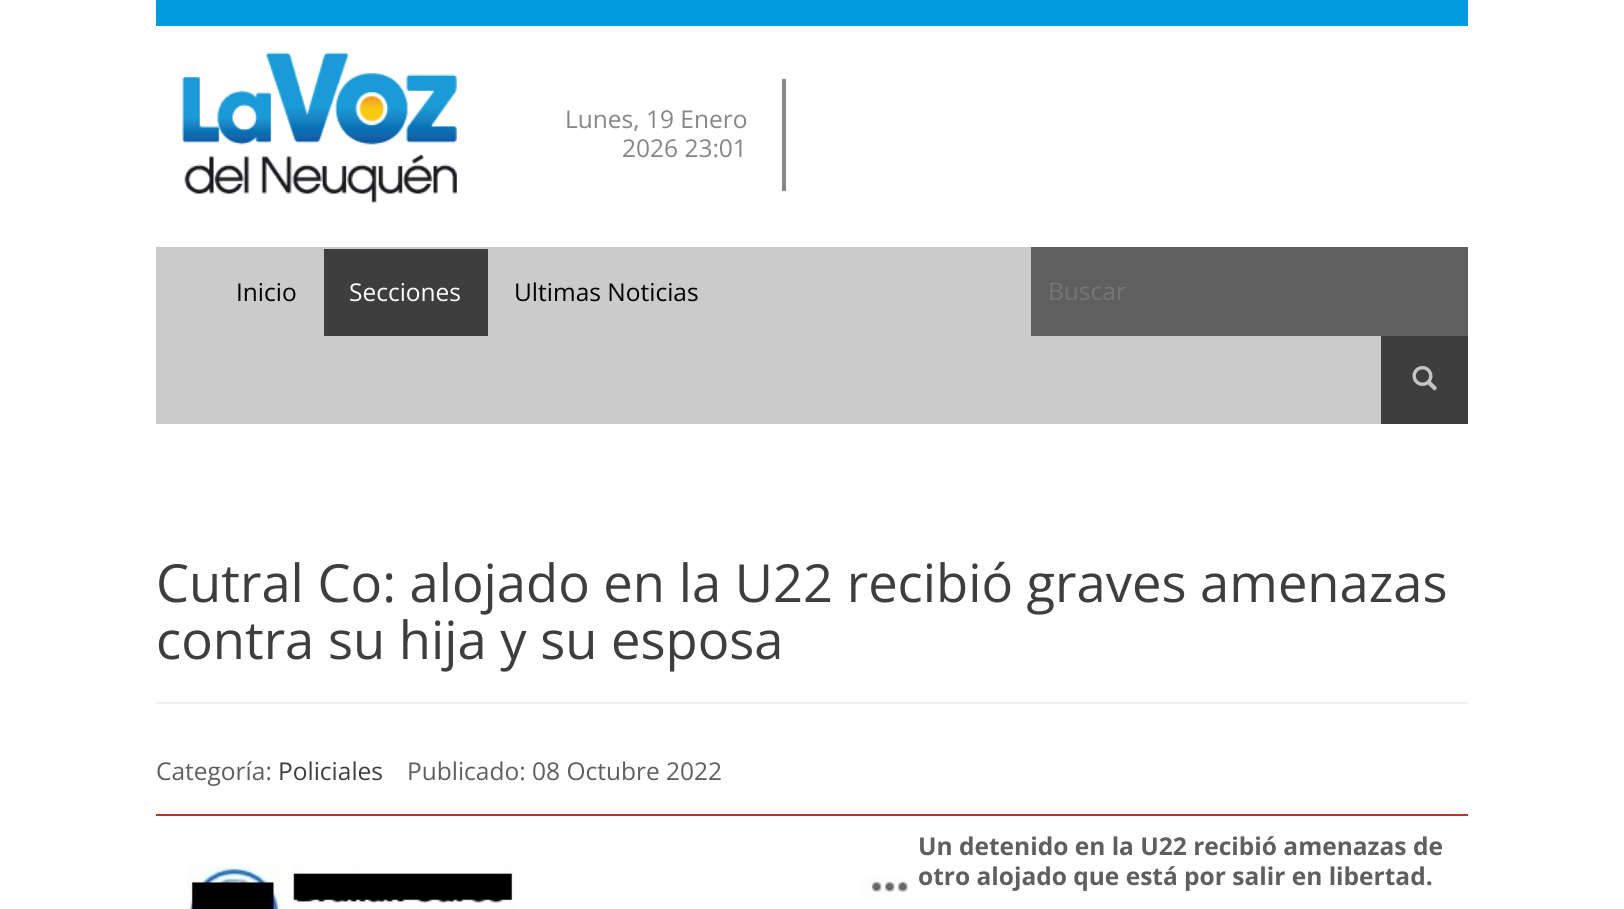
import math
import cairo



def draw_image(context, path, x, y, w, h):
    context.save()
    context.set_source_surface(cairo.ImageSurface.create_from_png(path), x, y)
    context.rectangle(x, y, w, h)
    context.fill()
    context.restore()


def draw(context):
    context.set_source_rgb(1, 1, 1)
    context.paint()
    context.set_source_rgb(0, 156 / 255, 221 / 255)
    context.rectangle(156, 0, 1312, 26)
    context.fill()
    draw_image(context, "images/1.png", 182, 52, 275, 151)
    context.set_source_rgb(134 / 255, 134 / 255, 134 / 255)
    context.rectangle(782, 79, 4, 112)
    context.fill()
    context.set_source_rgb(203 / 255, 203 / 255, 203 / 255)
    context.rectangle(156, 247, 1225, 177)
    context.fill()
    context.set_source_rgb(62 / 255, 62 / 255, 62 / 255)
    context.rectangle(324, 249, 164, 87)
    context.fill()
    context.set_source_rgb(95 / 255, 95 / 255, 95 / 255)
    context.rectangle(1031, 247, 437, 89)
    context.fill()
    context.set_source_rgb(62 / 255, 62 / 255, 62 / 255)
    context.rectangle(1381, 336, 87, 88)
    context.fill()
    draw_image(context, "images/2.png", 1412, 365, 25, 26)
    context.set_source_rgb(238 / 255, 238 / 255, 238 / 255)
    context.rectangle(156, 702, 1312, 2)
    context.fill()
    context.set_source_rgb(190 / 255, 50 / 255, 43 / 255)
    context.rectangle(156, 814, 1312, 2)
    context.fill()
    draw_image(context, "images/3.png", 187, 864, 721, 45)
    context.select_font_face("Open Sans")
    context.set_font_size(24.5)
    context.set_source_rgb(134 / 255, 134 / 255, 134 / 255)
    context.move_to(565, 128)
    context.show_text("Lunes, 19 Enero")
    context.move_to(622, 157)
    context.show_text("2026 23:01")
    context.set_source_rgb(0, 0, 0)
    context.move_to(236, 301)
    context.show_text("Inicio")
    context.set_source_rgb(1, 1, 1)
    context.move_to(349, 301)
    context.show_text("Secciones")
    context.set_source_rgb(0, 0, 0)
    context.move_to(514, 301)
    context.show_text("Ultimas Noticias")
    context.set_source_rgb(117 / 255, 117 / 255, 117 / 255)
    context.move_to(1048, 300)
    context.show_text("Buscar")
    context.set_font_size(52.5)
    context.set_source_rgb(62 / 255, 62 / 255, 62 / 255)
    context.move_to(156, 602)
    context.show_text("Cutral Co: alojado en la U22 recibió graves amenazas")
    context.move_to(156, 659)
    context.show_text("contra su hija y su esposa")
    context.set_font_size(24.5)
    context.set_source_rgb(95 / 255, 95 / 255, 95 / 255)
    context.move_to(156, 780)
    context.show_text("Categoría:")
    context.set_source_rgb(62 / 255, 62 / 255, 62 / 255)
    context.move_to(278, 780)
    context.show_text("Policiales")
    context.set_source_rgb(95 / 255, 95 / 255, 95 / 255)
    context.move_to(407, 780)
    context.show_text("Publicado: 08 Octubre 2022")
    context.select_font_face("Open Sans", cairo.FontSlant.NORMAL, cairo.FontWeight.BOLD)
    context.move_to(918, 855)
    context.show_text("Un detenido en la U22 recibió amenazas de")
    context.move_to(918, 885)
    context.show_text("otro alojado que está por salir en libertad.")


surface = cairo.ImageSurface(cairo.Format.RGB24, 1624, 909)
context = cairo.Context(surface)
options = cairo.FontOptions()
options.set_hint_metrics(cairo.HintMetrics.OFF)
options.set_hint_style(cairo.HintStyle.NONE)
context.set_font_options(options)
context.set_miter_limit(4)
draw(context)
surface.write_to_png("out.png")
